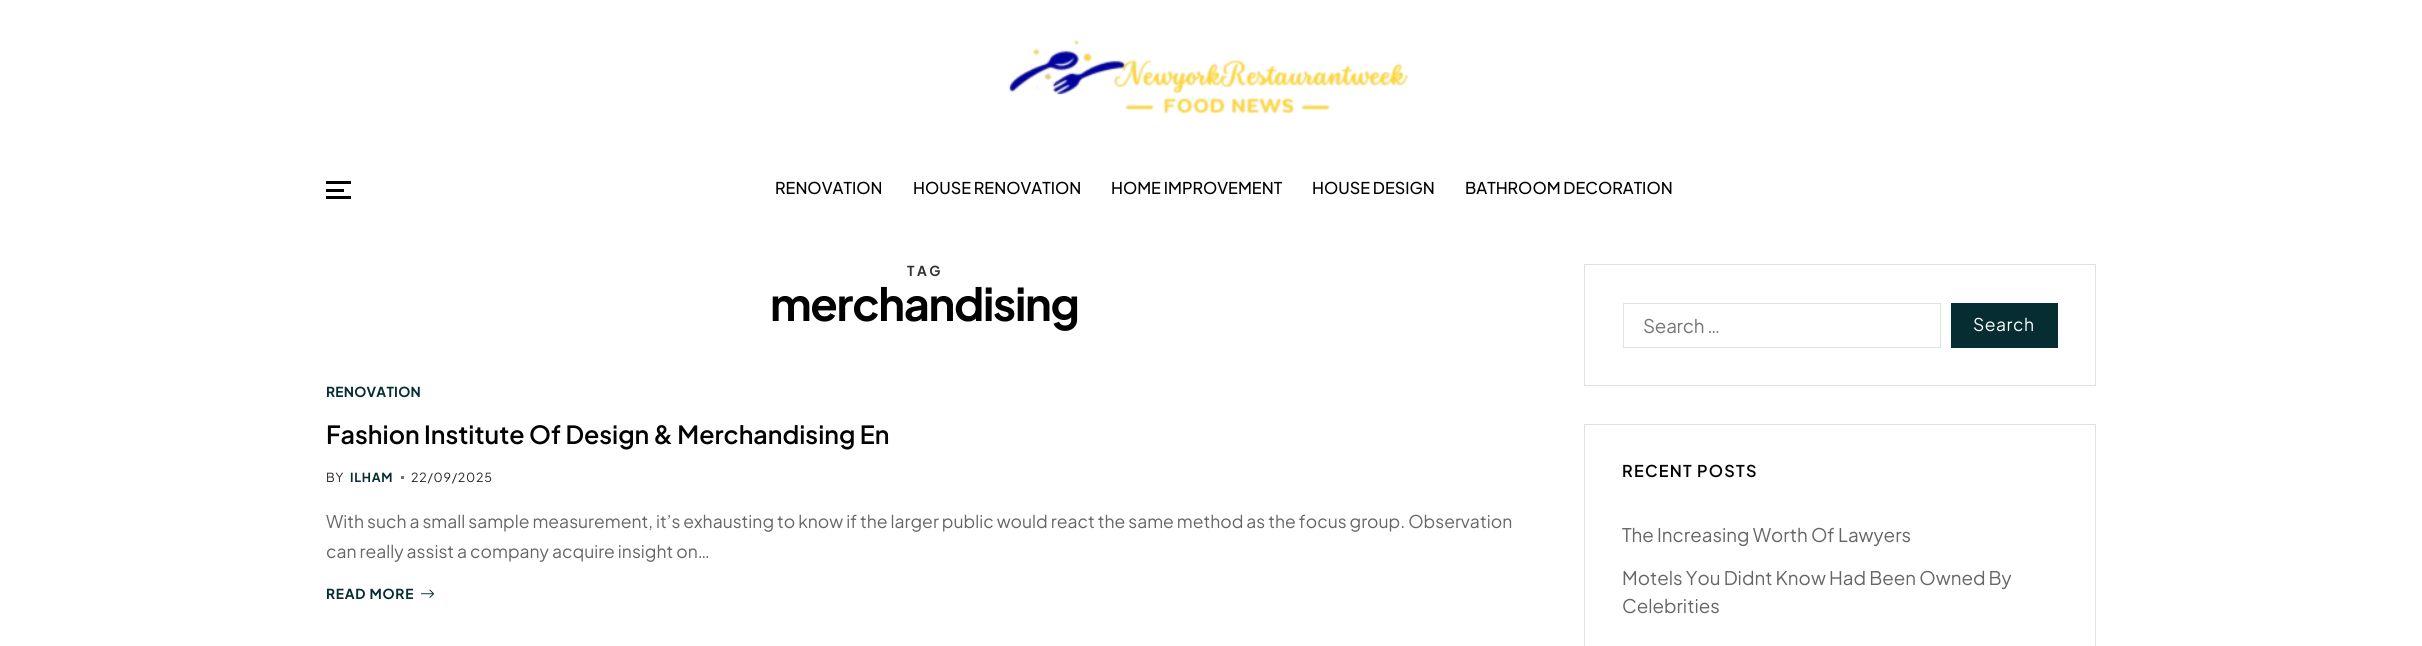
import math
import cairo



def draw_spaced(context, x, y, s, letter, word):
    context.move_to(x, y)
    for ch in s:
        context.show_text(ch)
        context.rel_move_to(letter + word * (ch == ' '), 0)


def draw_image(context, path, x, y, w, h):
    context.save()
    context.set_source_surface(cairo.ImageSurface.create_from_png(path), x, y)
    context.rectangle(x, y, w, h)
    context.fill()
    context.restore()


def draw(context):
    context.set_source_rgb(1, 1, 1)
    context.paint()
    draw_image(context, "images/1.png", 1008, 39, 401, 75)
    context.set_source_rgb(1 / 255, 1 / 255, 1 / 255)
    context.rectangle(326, 181, 25, 3)
    context.fill()
    context.rectangle(326, 189, 18, 3)
    context.fill()
    context.rectangle(326, 196, 25, 3)
    context.fill()
    context.set_source_rgb(108 / 255, 117 / 255, 125 / 255)
    context.rectangle(401, 476, 3, 3)
    context.fill()
    draw_image(context, "images/2.png", 421, 589, 13, 9)
    context.rectangle(1584.5, 264.5, 511, 121)
    context.set_source_rgb(222 / 255, 226 / 255, 230 / 255)
    context.set_line_width(1)
    context.stroke()
    context.rectangle(1623.5, 303.5, 317, 44)
    context.stroke()
    context.set_source_rgb(5 / 255, 45 / 255, 50 / 255)
    context.rectangle(1951, 303, 107, 45)
    context.fill()
    context.rectangle(1584.5, 424.5, 511, 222)
    context.set_source_rgb(222 / 255, 226 / 255, 230 / 255)
    context.stroke()
    context.select_font_face("Plus Jakarta Sans Medium")
    context.set_font_size(16.25)
    context.set_source_rgb(1 / 255, 1 / 255, 1 / 255)
    context.move_to(775, 194)
    context.show_text("RENOVATION")
    context.move_to(913, 194)
    context.show_text("HOUSE RENOVATION")
    context.move_to(1111, 194)
    context.show_text("HOME IMPROVEMENT")
    context.move_to(1312, 194)
    context.show_text("HOUSE DESIGN")
    context.move_to(1465, 194)
    context.show_text("BATHROOM DECORATION")
    context.select_font_face("Plus Jakarta Sans", cairo.FontSlant.NORMAL, cairo.FontWeight.BOLD)
    context.set_font_size(13.75)
    context.set_source_rgb(51 / 255, 51 / 255, 51 / 255)
    draw_spaced(context, 907, 276, "TAG", 2.5, 0)
    context.set_font_size(45)
    context.set_source_rgb(1 / 255, 1 / 255, 1 / 255)
    draw_spaced(context, 770, 321, "merchandising", -1.25, 0)
    context.set_font_size(13.75)
    context.set_source_rgb(5 / 255, 45 / 255, 50 / 255)
    draw_spaced(context, 326, 397, "RENOVATION", 0.25, 0)
    context.select_font_face("Plus Jakarta Sans SemiBold")
    context.set_font_size(25)
    context.set_source_rgb(1 / 255, 1 / 255, 1 / 255)
    context.move_to(326, 444)
    context.show_text("Fashion Institute Of Design & Merchandising En")
    context.select_font_face("Plus Jakarta Sans")
    context.set_font_size(12.5)
    context.set_source_rgb(33 / 255, 37 / 255, 41 / 255)
    draw_spaced(context, 326, 482, "BY", 0.75, 0)
    context.select_font_face("Plus Jakarta Sans", cairo.FontSlant.NORMAL, cairo.FontWeight.BOLD)
    context.set_source_rgb(5 / 255, 45 / 255, 50 / 255)
    draw_spaced(context, 350, 482, "ILHAM", 0.75, 0)
    context.select_font_face("Plus Jakarta Sans")
    context.set_source_rgb(33 / 255, 37 / 255, 41 / 255)
    draw_spaced(context, 411, 482, "22/09/2025", 0.75, 0)
    context.set_font_size(17.5)
    context.set_source_rgb(102 / 255, 102 / 255, 102 / 255)
    context.move_to(326, 528)
    context.show_text("With such a small sample measurement, it’s exhausting to know if the larger public would react the same method as the focus group. Observation")
    context.move_to(326, 558)
    context.show_text("can really assist a company acquire insight on…")
    context.select_font_face("Plus Jakarta Sans", cairo.FontSlant.NORMAL, cairo.FontWeight.BOLD)
    context.set_font_size(13.75)
    context.set_source_rgb(5 / 255, 45 / 255, 50 / 255)
    draw_spaced(context, 326, 599, "READ MORE", 0.75, 0)
    context.select_font_face("Plus Jakarta Sans")
    context.set_font_size(18.75)
    context.set_source_rgb(117 / 255, 117 / 255, 117 / 255)
    draw_spaced(context, 1643, 333, "Search …", -0.25, 0)
    context.set_font_size(17.5)
    context.set_source_rgb(1, 1, 1)
    draw_spaced(context, 1973, 331, "Search", 0.5, 0)
    context.select_font_face("Plus Jakarta Sans SemiBold")
    context.set_font_size(16.25)
    context.set_source_rgb(1 / 255, 1 / 255, 1 / 255)
    draw_spaced(context, 1622, 477, "RECENT POSTS", 1.25, 0)
    context.select_font_face("Plus Jakarta Sans")
    context.set_font_size(18.75)
    context.set_source_rgb(102 / 255, 102 / 255, 102 / 255)
    context.move_to(1622, 542)
    context.show_text("The Increasing Worth Of Lawyers")
    context.move_to(1622, 585)
    context.show_text("Motels You Didnt Know Had Been Owned By")
    context.move_to(1622, 613)
    context.show_text("Celebrities")


surface = cairo.ImageSurface(cairo.Format.RGB24, 2422, 646)
context = cairo.Context(surface)
options = cairo.FontOptions()
options.set_hint_metrics(cairo.HintMetrics.OFF)
options.set_hint_style(cairo.HintStyle.NONE)
context.set_font_options(options)
context.set_miter_limit(4)
draw(context)
surface.write_to_png("out.png")
